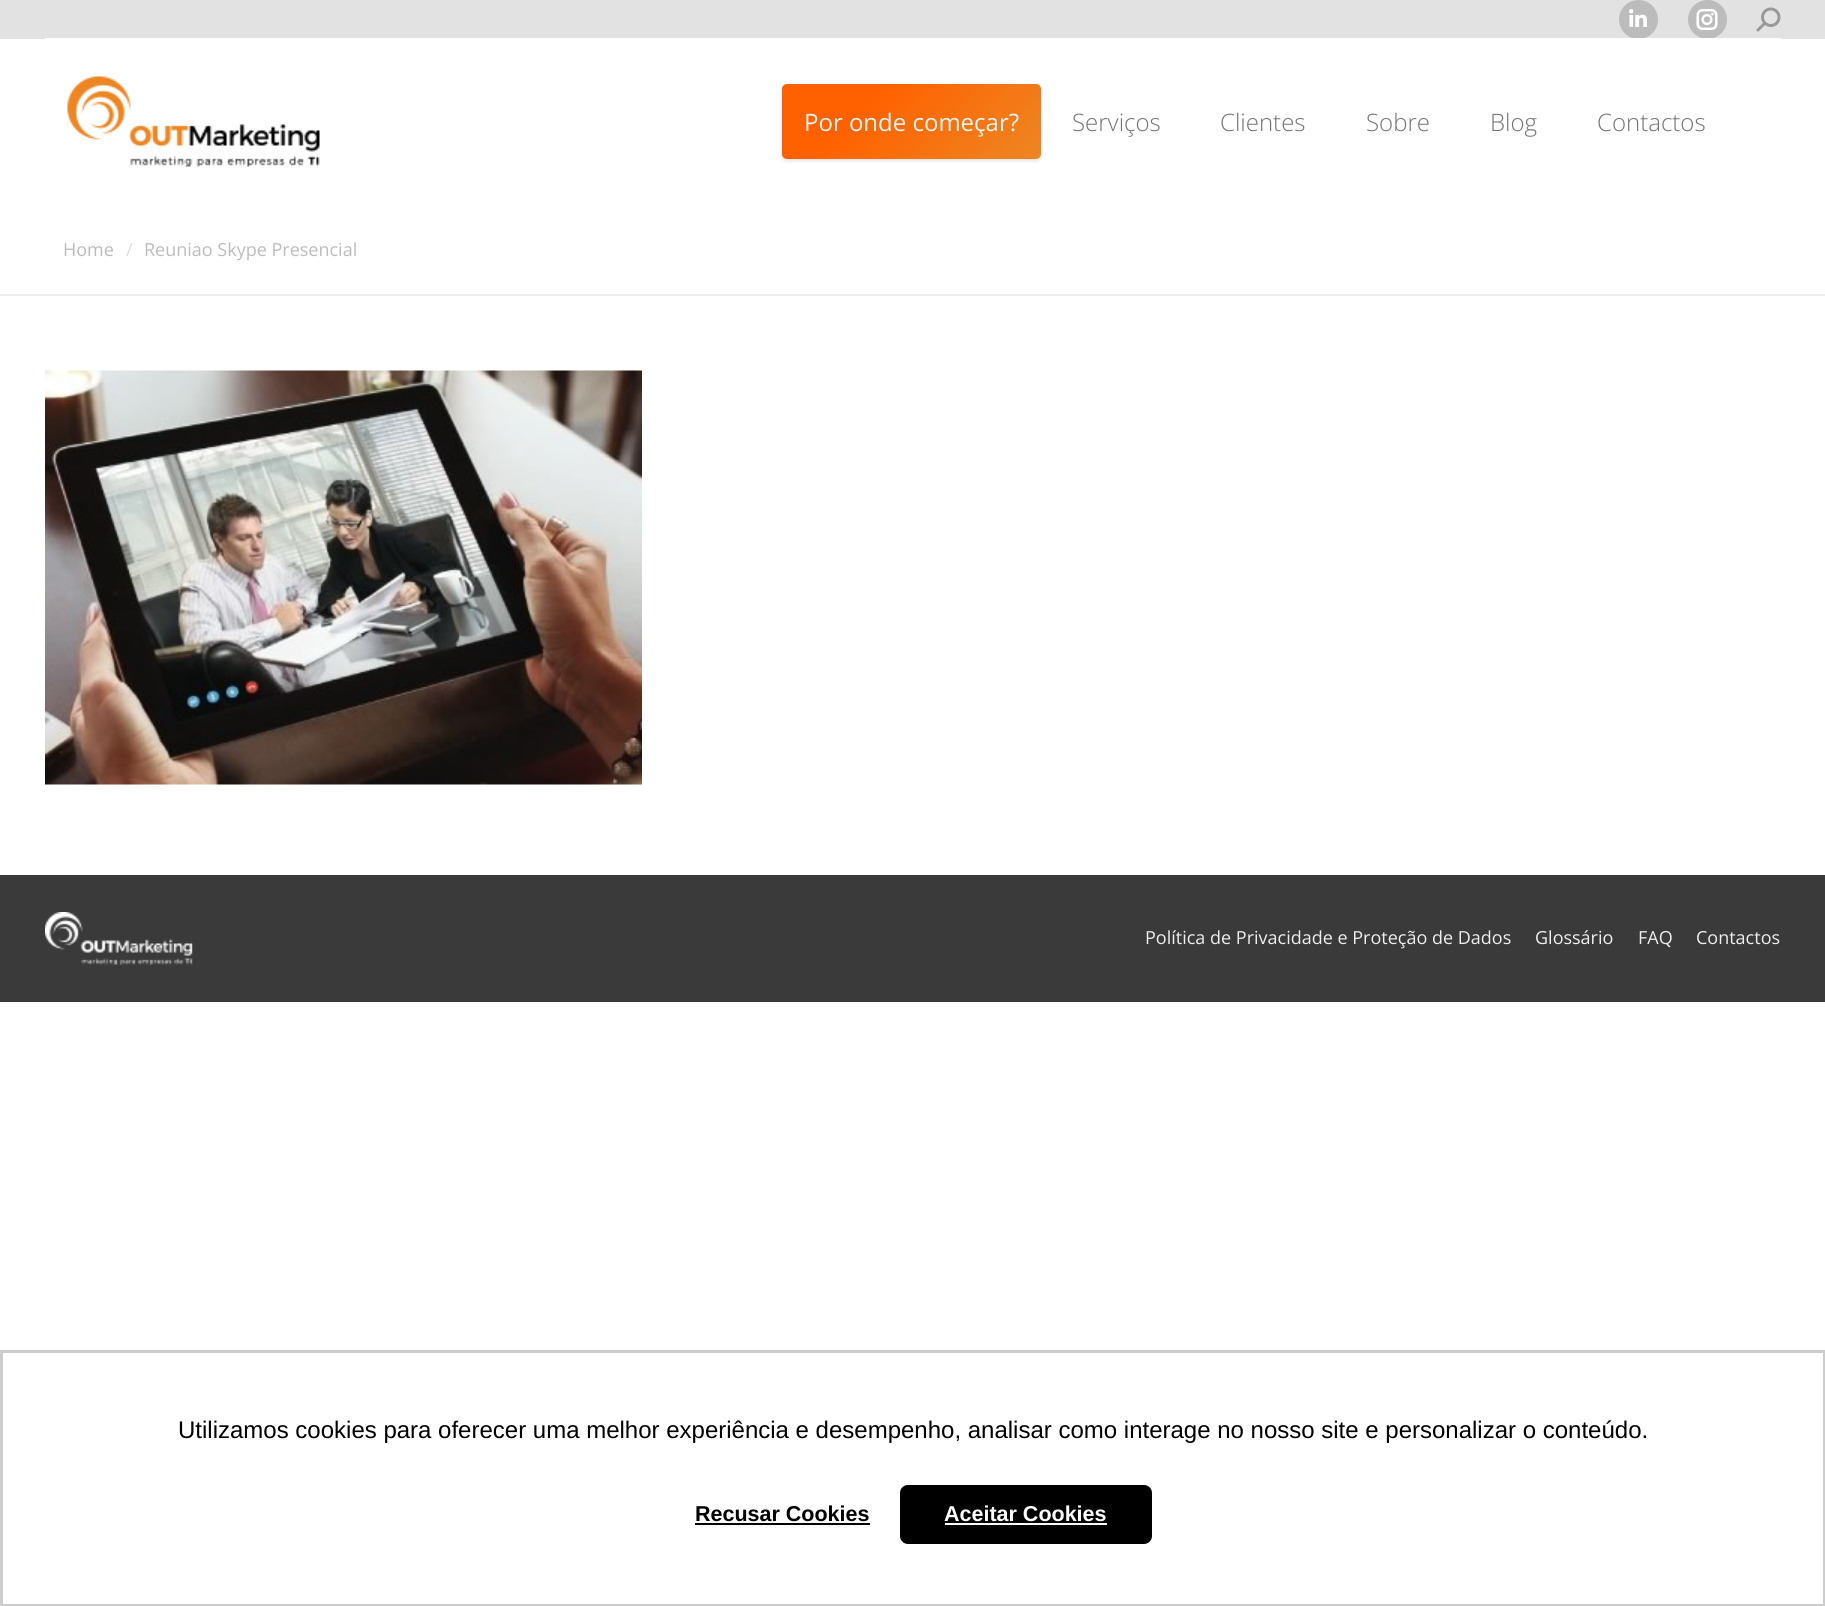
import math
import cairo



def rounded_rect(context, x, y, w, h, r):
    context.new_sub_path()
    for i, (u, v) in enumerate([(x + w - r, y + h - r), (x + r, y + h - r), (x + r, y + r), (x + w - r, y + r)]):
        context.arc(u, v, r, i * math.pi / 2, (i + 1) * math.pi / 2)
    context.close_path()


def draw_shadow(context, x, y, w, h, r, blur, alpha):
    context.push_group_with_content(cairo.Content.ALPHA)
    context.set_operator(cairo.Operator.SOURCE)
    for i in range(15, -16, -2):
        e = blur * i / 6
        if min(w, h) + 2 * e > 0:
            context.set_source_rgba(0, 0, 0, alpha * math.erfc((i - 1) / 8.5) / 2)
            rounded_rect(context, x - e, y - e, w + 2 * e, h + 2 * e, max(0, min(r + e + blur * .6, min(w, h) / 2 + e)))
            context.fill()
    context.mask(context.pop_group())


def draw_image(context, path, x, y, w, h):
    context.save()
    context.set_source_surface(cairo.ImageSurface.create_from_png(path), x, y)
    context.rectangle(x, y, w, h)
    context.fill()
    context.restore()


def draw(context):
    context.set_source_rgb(1, 1, 1)
    context.paint()
    context.set_source_rgb(226 / 255, 226 / 255, 226 / 255)
    context.rectangle(0, 0, 1825, 39)
    context.fill()
    context.set_source_rgb(188 / 255, 188 / 255, 188 / 255)
    context.arc(1638.5, 19.5, 19.5, 0, 2 * math.pi)
    context.fill()
    draw_image(context, "images/1.png", 1629, 9, 18, 18)
    context.arc(1707.5, 19.5, 19.5, 0, 2 * math.pi)
    context.fill()
    draw_image(context, "images/2.png", 1696, 9, 22, 21)
    draw_image(context, "images/3.png", 1756, 7, 25, 25)
    context.set_source_rgb(1, 1, 1)
    context.rectangle(45, 38, 1736, 1)
    context.fill()
    draw_image(context, "images/4.png", 67, 76, 253, 91)
    context.set_source_rgb(0, 0, 0)
    draw_shadow(context, 782, 86, 259, 75, 5, 2, 0.12)
    gradient = cairo.LinearGradient(828, 38, 995, 205)
    gradient.add_color_stop_rgba(0.3, 1, 97 / 255, 0, 1)
    gradient.add_color_stop_rgba(1, 237 / 255, 134 / 255, 35 / 255, 1)
    context.set_source(gradient)
    rounded_rect(context, 782, 84, 259, 75, 5)
    context.fill()
    context.set_source_rgb(238 / 255, 238 / 255, 238 / 255)
    context.rectangle(0, 294, 1825, 2)
    context.fill()
    draw_image(context, "images/5.png", 45, 370, 597, 415)
    context.set_source_rgb(58 / 255, 58 / 255, 58 / 255)
    context.rectangle(0, 875, 1825, 127)
    context.fill()
    draw_image(context, "images/6.png", 45, 912, 148, 53)
    context.rectangle(1.5, 1351.5, 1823, 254)
    context.set_source_rgb(204 / 255, 204 / 255, 204 / 255)
    context.set_line_width(3)
    context.stroke()
    context.set_source_rgb(0, 0, 0)
    context.rectangle(695, 1523, 175, 2)
    context.fill()
    rounded_rect(context, 900, 1485, 252, 59, 8)
    context.fill()
    context.set_source_rgb(1, 1, 1)
    context.rectangle(945, 1523, 162, 2)
    context.fill()
    context.select_font_face("Open Sans")
    context.set_font_size(24)
    context.set_source_rgb(246 / 255, 246 / 255, 246 / 255)
    context.move_to(804, 131)
    context.show_text("Por onde começar?")
    context.select_font_face("Open Sans Light")
    context.set_source_rgb(117 / 255, 117 / 255, 117 / 255)
    context.move_to(1072, 131)
    context.show_text("Serviços")
    context.move_to(1220, 131)
    context.show_text("Clientes")
    context.move_to(1366, 131)
    context.show_text("Sobre")
    context.move_to(1490, 131)
    context.show_text("Blog")
    context.move_to(1597, 131)
    context.show_text("Contactos")
    context.select_font_face("Open Sans")
    context.set_font_size(18)
    context.set_source_rgb(188 / 255, 188 / 255, 188 / 255)
    context.move_to(63, 256)
    context.show_text("Home")
    context.set_source_rgb(222 / 255, 222 / 255, 222 / 255)
    context.move_to(126, 256)
    context.show_text("/")
    context.set_source_rgb(188 / 255, 188 / 255, 188 / 255)
    context.move_to(144, 256)
    context.show_text("Reuniao Skype Presencial")
    context.set_source_rgb(238 / 255, 238 / 255, 238 / 255)
    context.move_to(1145, 944)
    context.show_text("Política de Privacidade e Proteção de Dados")
    context.move_to(1535, 944)
    context.show_text("Glossário")
    context.move_to(1638, 944)
    context.show_text("FAQ")
    context.move_to(1696, 944)
    context.show_text("Contactos")
    context.select_font_face("Liberation Sans")
    context.set_font_size(24)
    context.set_source_rgb(0, 0, 0)
    context.move_to(178, 1438)
    context.show_text("Utilizamos cookies para oferecer uma melhor experiência e desempenho, analisar como interage no nosso site e personalizar o conteúdo.")
    context.select_font_face("Liberation Sans", cairo.FontSlant.NORMAL, cairo.FontWeight.BOLD)
    context.set_font_size(21.5)
    context.move_to(695, 1521)
    context.show_text("Recusar Cookies")
    context.set_source_rgb(1, 1, 1)
    context.move_to(944, 1521)
    context.show_text("Aceitar Cookies")


surface = cairo.ImageSurface(cairo.Format.RGB24, 1825, 1606)
context = cairo.Context(surface)
options = cairo.FontOptions()
options.set_hint_metrics(cairo.HintMetrics.OFF)
options.set_hint_style(cairo.HintStyle.NONE)
context.set_font_options(options)
context.set_miter_limit(4)
draw(context)
surface.write_to_png("out.png")
